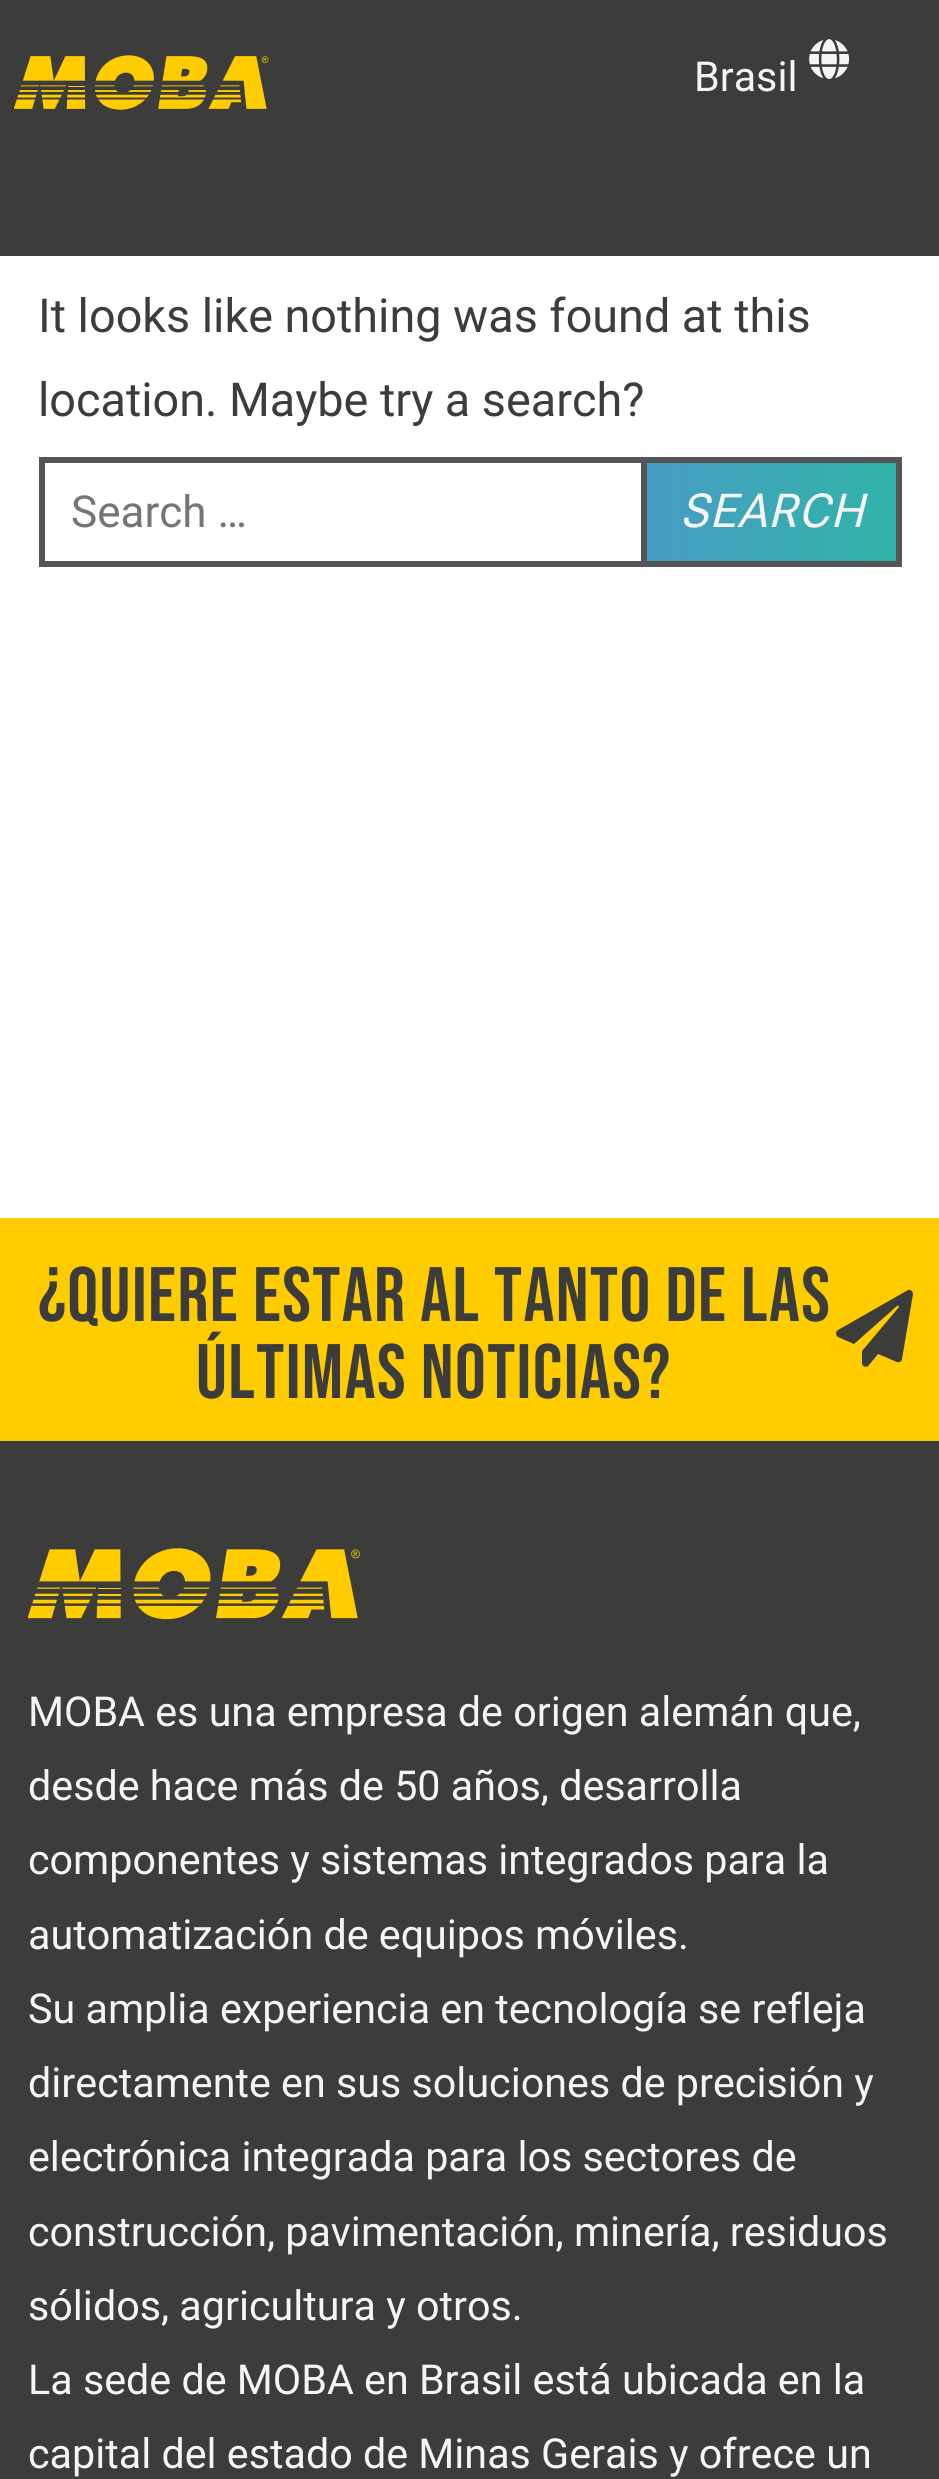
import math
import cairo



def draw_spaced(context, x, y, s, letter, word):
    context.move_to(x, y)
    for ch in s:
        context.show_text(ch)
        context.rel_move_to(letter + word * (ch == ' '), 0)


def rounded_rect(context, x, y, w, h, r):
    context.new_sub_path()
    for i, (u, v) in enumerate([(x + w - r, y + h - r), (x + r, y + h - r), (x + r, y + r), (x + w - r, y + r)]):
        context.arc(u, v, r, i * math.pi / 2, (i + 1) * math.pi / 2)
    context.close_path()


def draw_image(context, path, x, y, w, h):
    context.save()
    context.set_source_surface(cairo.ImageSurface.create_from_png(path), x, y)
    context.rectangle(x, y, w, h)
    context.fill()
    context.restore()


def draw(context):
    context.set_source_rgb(1, 1, 1)
    context.paint()
    context.set_source_rgb(60 / 255, 60 / 255, 59 / 255)
    context.rectangle(0, 0, 939, 256)
    context.fill()
    draw_image(context, "images/1.png", 14, 55, 255, 55)
    draw_image(context, "images/2.png", 809, 39, 41, 41)
    context.rectangle(42, 460, 857, 104)
    context.set_source_rgb(86 / 255, 85 / 255, 85 / 255)
    context.set_line_width(6)
    context.stroke()
    gradient = cairo.LinearGradient(646, 512, 897, 512)
    gradient.add_color_stop_rgba(0, 71 / 255, 156 / 255, 195 / 255, 1)
    gradient.add_color_stop_rgba(1, 49 / 255, 180 / 255, 168 / 255, 1)
    context.set_source(gradient)
    context.rectangle(646, 457, 251, 110)
    context.fill()
    rounded_rect(context, 644, 460, 255, 104, 3)
    context.set_source_rgb(86 / 255, 85 / 255, 85 / 255)
    context.stroke()
    context.set_source_rgb(1, 204 / 255, 0)
    context.rectangle(0, 1218, 939, 223)
    context.fill()
    context.set_source_rgb(60 / 255, 60 / 255, 59 / 255)
    context.new_path()
    context.move_to(908, 1290)
    context.line_to(838, 1330)
    context.curve_to(835, 1332, 836, 1336, 838, 1337)
    context.line_to(854, 1344)
    context.line_to(897, 1306)
    context.curve_to(898, 1305, 899, 1306, 899, 1307)
    context.line_to(862, 1351)
    context.line_to(862, 1363)
    context.curve_to(862, 1367, 867, 1368, 869, 1365)
    context.line_to(878, 1354)
    context.line_to(897, 1362)
    context.curve_to(899, 1363, 902, 1361, 902, 1359)
    context.line_to(913, 1294)
    context.curve_to(913, 1291, 910, 1289, 908, 1290)
    context.close_path()
    context.fill()
    context.rectangle(0, 1441, 939, 1038)
    context.fill()
    draw_image(context, "images/3.png", 28, 1548, 332, 72)
    context.select_font_face("Roboto")
    context.set_font_size(41.25)
    context.set_source_rgb(245 / 255, 245 / 255, 245 / 255)
    context.move_to(694, 91)
    context.show_text("Brasil")
    context.set_font_size(46.75)
    context.set_source_rgb(60 / 255, 60 / 255, 59 / 255)
    context.move_to(38, 332)
    context.show_text("It looks like nothing was found at this")
    context.move_to(38, 416)
    context.show_text("location. Maybe try a search?")
    context.set_font_size(44)
    context.set_source_rgb(117 / 255, 117 / 255, 117 / 255)
    context.move_to(71, 527)
    context.show_text("Search …")
    context.select_font_face("Roboto Flex", cairo.FontSlant.ITALIC)
    context.set_font_size(46.75)
    context.set_source_rgb(245 / 255, 245 / 255, 245 / 255)
    draw_spaced(context, 680, 527, "SEARCH", 1.4, 0)
    context.select_font_face("Bebas Neue")
    context.set_font_size(77)
    context.set_source_rgb(60 / 255, 60 / 255, 59 / 255)
    draw_spaced(context, 38, 1321, "¿QUIERE ESTAR AL TANTO DE LAS", 1.4, 0)
    draw_spaced(context, 196, 1398, "ÚLTIMAS NOTICIAS?", 1.4, 0)
    context.select_font_face("Roboto")
    context.set_font_size(41.25)
    context.set_source_rgb(245 / 255, 245 / 255, 245 / 255)
    context.move_to(28, 1726)
    context.show_text("MOBA es una empresa de origen alemán que,")
    context.move_to(28, 1800)
    context.show_text("desde hace más de 50 años, desarrolla")
    context.move_to(28, 1874)
    context.show_text("componentes y sistemas integrados para la")
    context.move_to(28, 1949)
    context.show_text("automatización de equipos móviles.")
    context.move_to(28, 2023)
    context.show_text("Su amplia experiencia en tecnología se refleja")
    context.move_to(28, 2097)
    context.show_text("directamente en sus soluciones de precisión y")
    context.move_to(28, 2171)
    context.show_text("electrónica integrada para los sectores de")
    context.move_to(28, 2246)
    context.show_text("construcción, pavimentación, minería, residuos")
    context.move_to(28, 2320)
    context.show_text("sólidos, agricultura y otros.")
    context.move_to(28, 2394)
    context.show_text("La sede de MOBA en Brasil está ubicada en la")
    context.move_to(28, 2468)
    context.show_text("capital del estado de Minas Gerais y ofrece un")


surface = cairo.ImageSurface(cairo.Format.RGB24, 939, 2479)
context = cairo.Context(surface)
options = cairo.FontOptions()
options.set_hint_metrics(cairo.HintMetrics.OFF)
options.set_hint_style(cairo.HintStyle.NONE)
context.set_font_options(options)
context.set_miter_limit(4)
draw(context)
surface.write_to_png("out.png")
